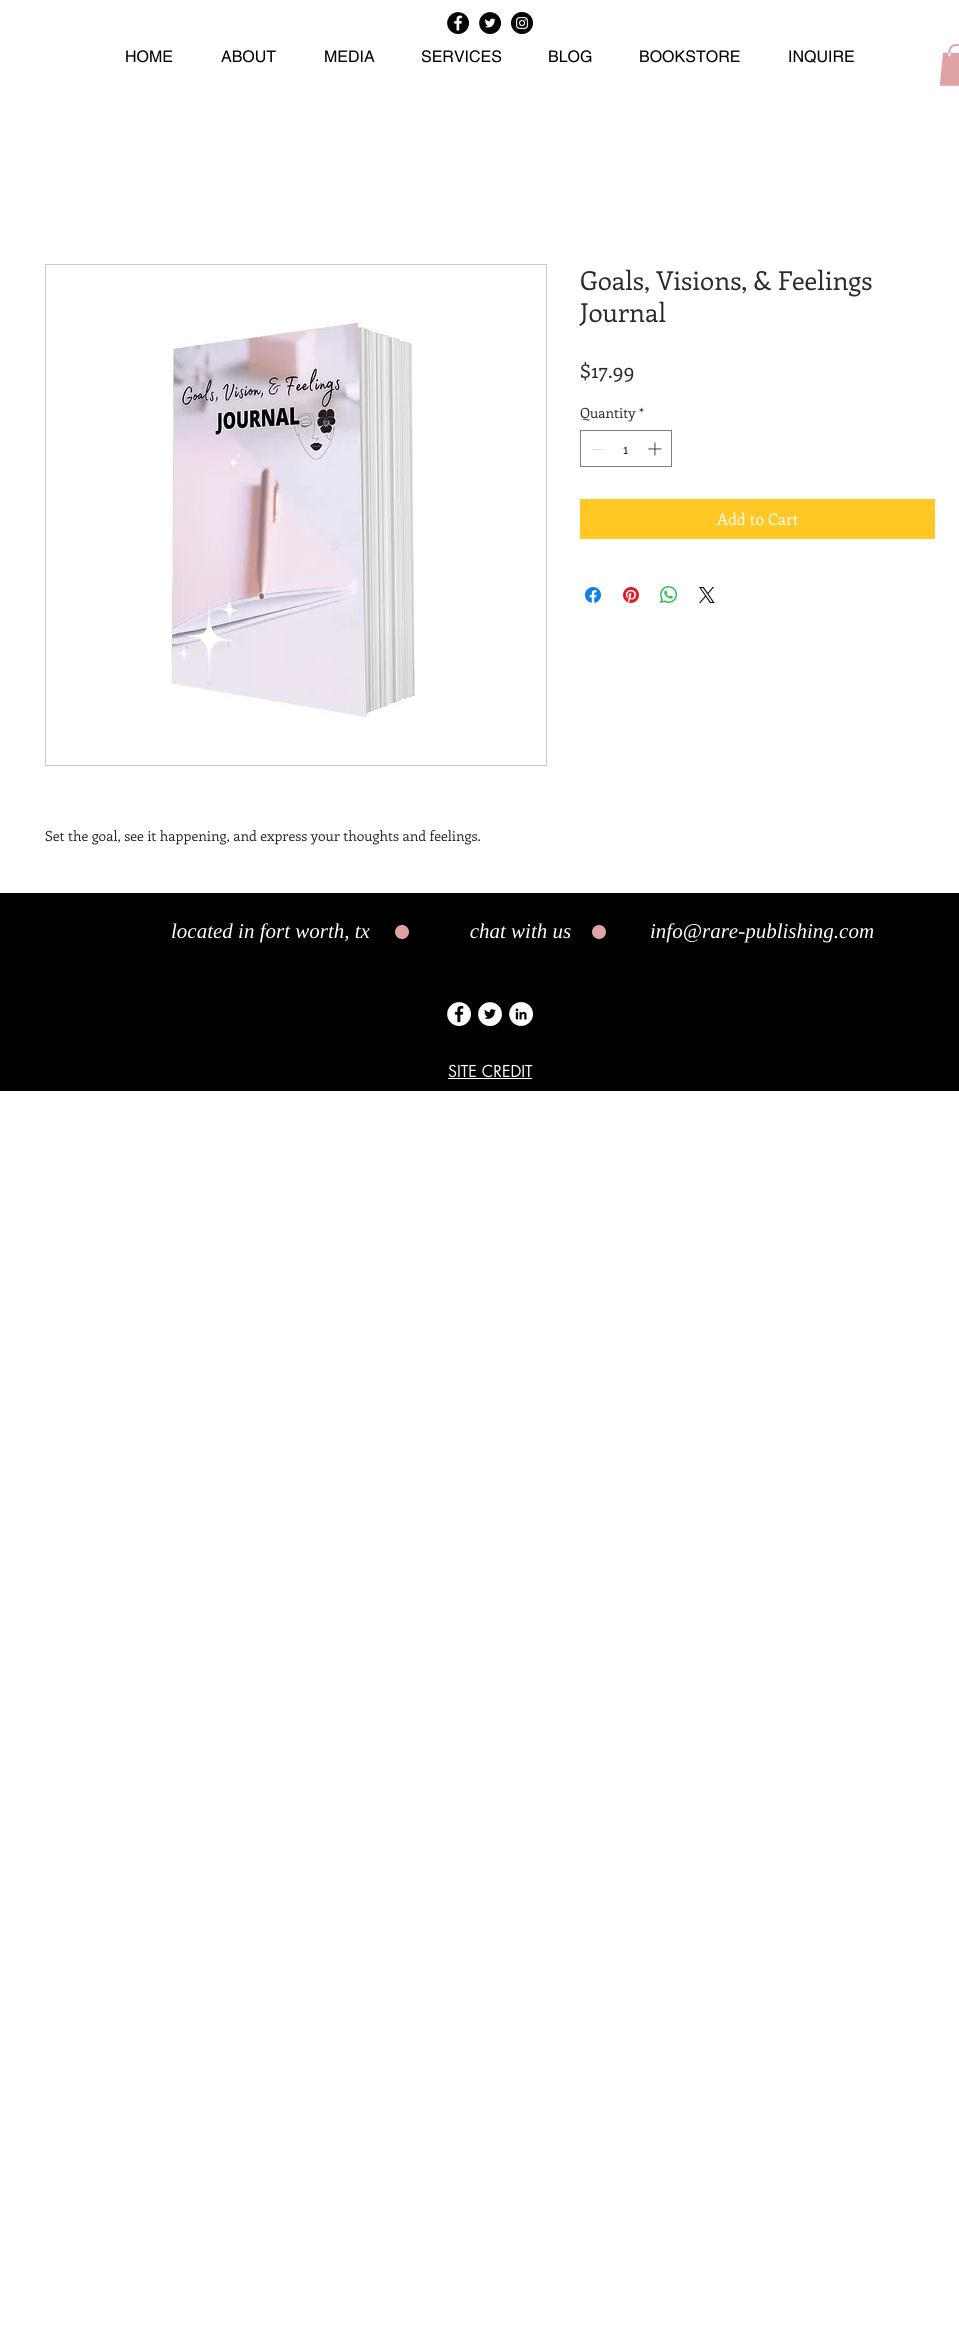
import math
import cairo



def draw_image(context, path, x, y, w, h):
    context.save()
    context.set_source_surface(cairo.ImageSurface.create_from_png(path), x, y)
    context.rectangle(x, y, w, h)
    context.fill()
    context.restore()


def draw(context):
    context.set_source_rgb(1, 1, 1)
    context.paint()
    draw_image(context, "images/1.png", 447, 12, 22, 22)
    draw_image(context, "images/2.png", 479, 12, 22, 22)
    draw_image(context, "images/3.png", 511, 12, 22, 22)
    draw_image(context, "images/4.png", 939, 44, 20, 42)
    context.rectangle(580.5, 430.5, 91, 36)
    context.set_source_rgb(127 / 255, 127 / 255, 127 / 255)
    context.set_line_width(1)
    context.stroke()
    context.set_source_rgb(227 / 255, 227 / 255, 227 / 255)
    context.rectangle(592, 449, 13, 1)
    context.fill()
    draw_image(context, "images/5.png", 648, 442, 14, 14)
    context.set_source_rgb(1, 200 / 255, 36 / 255)
    context.rectangle(580, 499, 355, 40)
    context.fill()
    draw_image(context, "images/6.png", 585, 587, 16, 16)
    draw_image(context, "images/7.png", 623, 587, 16, 16)
    draw_image(context, "images/8.png", 660, 586, 17, 17)
    draw_image(context, "images/9.png", 699, 587, 16, 16)
    context.rectangle(45.5, 264.5, 501, 501)
    context.set_source_rgb(204 / 255, 204 / 255, 204 / 255)
    context.stroke()
    draw_image(context, "images/10.png", 170, 321, 246, 396)
    context.set_source_rgb(0, 0, 0)
    context.rectangle(0, 893, 959, 198)
    context.fill()
    draw_image(context, "images/11.png", 592, 925, 14, 14)
    draw_image(context, "images/12.png", 447, 1002, 24, 24)
    draw_image(context, "images/13.png", 478, 1002, 24, 24)
    draw_image(context, "images/14.png", 509, 1002, 24, 24)
    context.set_source_rgb(1, 1, 1)
    context.rectangle(448, 1078, 84, 1)
    context.fill()
    context.select_font_face("helvetica")
    context.set_font_size(16)
    context.set_source_rgb(0, 0, 0)
    context.move_to(125, 62)
    context.show_text("HOME")
    context.move_to(221, 62)
    context.show_text("ABOUT")
    context.move_to(324, 62)
    context.show_text("MEDIA")
    context.move_to(421, 62)
    context.show_text("SERVICES")
    context.move_to(548, 62)
    context.show_text("BLOG")
    context.move_to(639, 62)
    context.show_text("BOOKSTORE")
    context.move_to(788, 62)
    context.show_text("INQUIRE")
    context.select_font_face("Enriqueta")
    context.set_font_size(26)
    context.set_source_rgb(42 / 255, 42 / 255, 42 / 255)
    context.move_to(580, 290)
    context.show_text("Goals, Visions, & Feelings")
    context.move_to(580, 322)
    context.show_text("Journal")
    context.set_font_size(20)
    context.move_to(580, 378)
    context.show_text("$17.99")
    context.set_font_size(14)
    context.move_to(580, 418)
    context.show_text("Quantity")
    context.move_to(639, 418)
    context.show_text("*")
    context.move_to(623, 454)
    context.show_text("1")
    context.set_font_size(16)
    context.set_source_rgb(1, 1, 1)
    context.move_to(717, 525)
    context.show_text("Add to Cart")
    context.set_font_size(14)
    context.set_source_rgb(42 / 255, 42 / 255, 42 / 255)
    context.move_to(45, 841)
    context.show_text("Set the goal, see it happening, and express your thoughts and feelings.")
    context.select_font_face("Liberation Serif", cairo.FontSlant.ITALIC)
    context.set_font_size(21)
    context.set_source_rgb(1, 1, 1)
    context.move_to(171, 938)
    context.show_text("located in fort worth, tx                   chat with us")
    context.move_to(650, 938)
    context.show_text("info@rare-publishing.com")
    draw_image(context, "images/11.png", 395, 925, 14, 14)
    context.select_font_face("futura")
    context.set_font_size(16)
    context.move_to(448, 1077)
    context.show_text("SITE CREDIT")


surface = cairo.ImageSurface(cairo.Format.RGB24, 959, 2345)
context = cairo.Context(surface)
options = cairo.FontOptions()
options.set_hint_metrics(cairo.HintMetrics.OFF)
options.set_hint_style(cairo.HintStyle.NONE)
context.set_font_options(options)
context.set_miter_limit(4)
draw(context)
surface.write_to_png("out.png")
